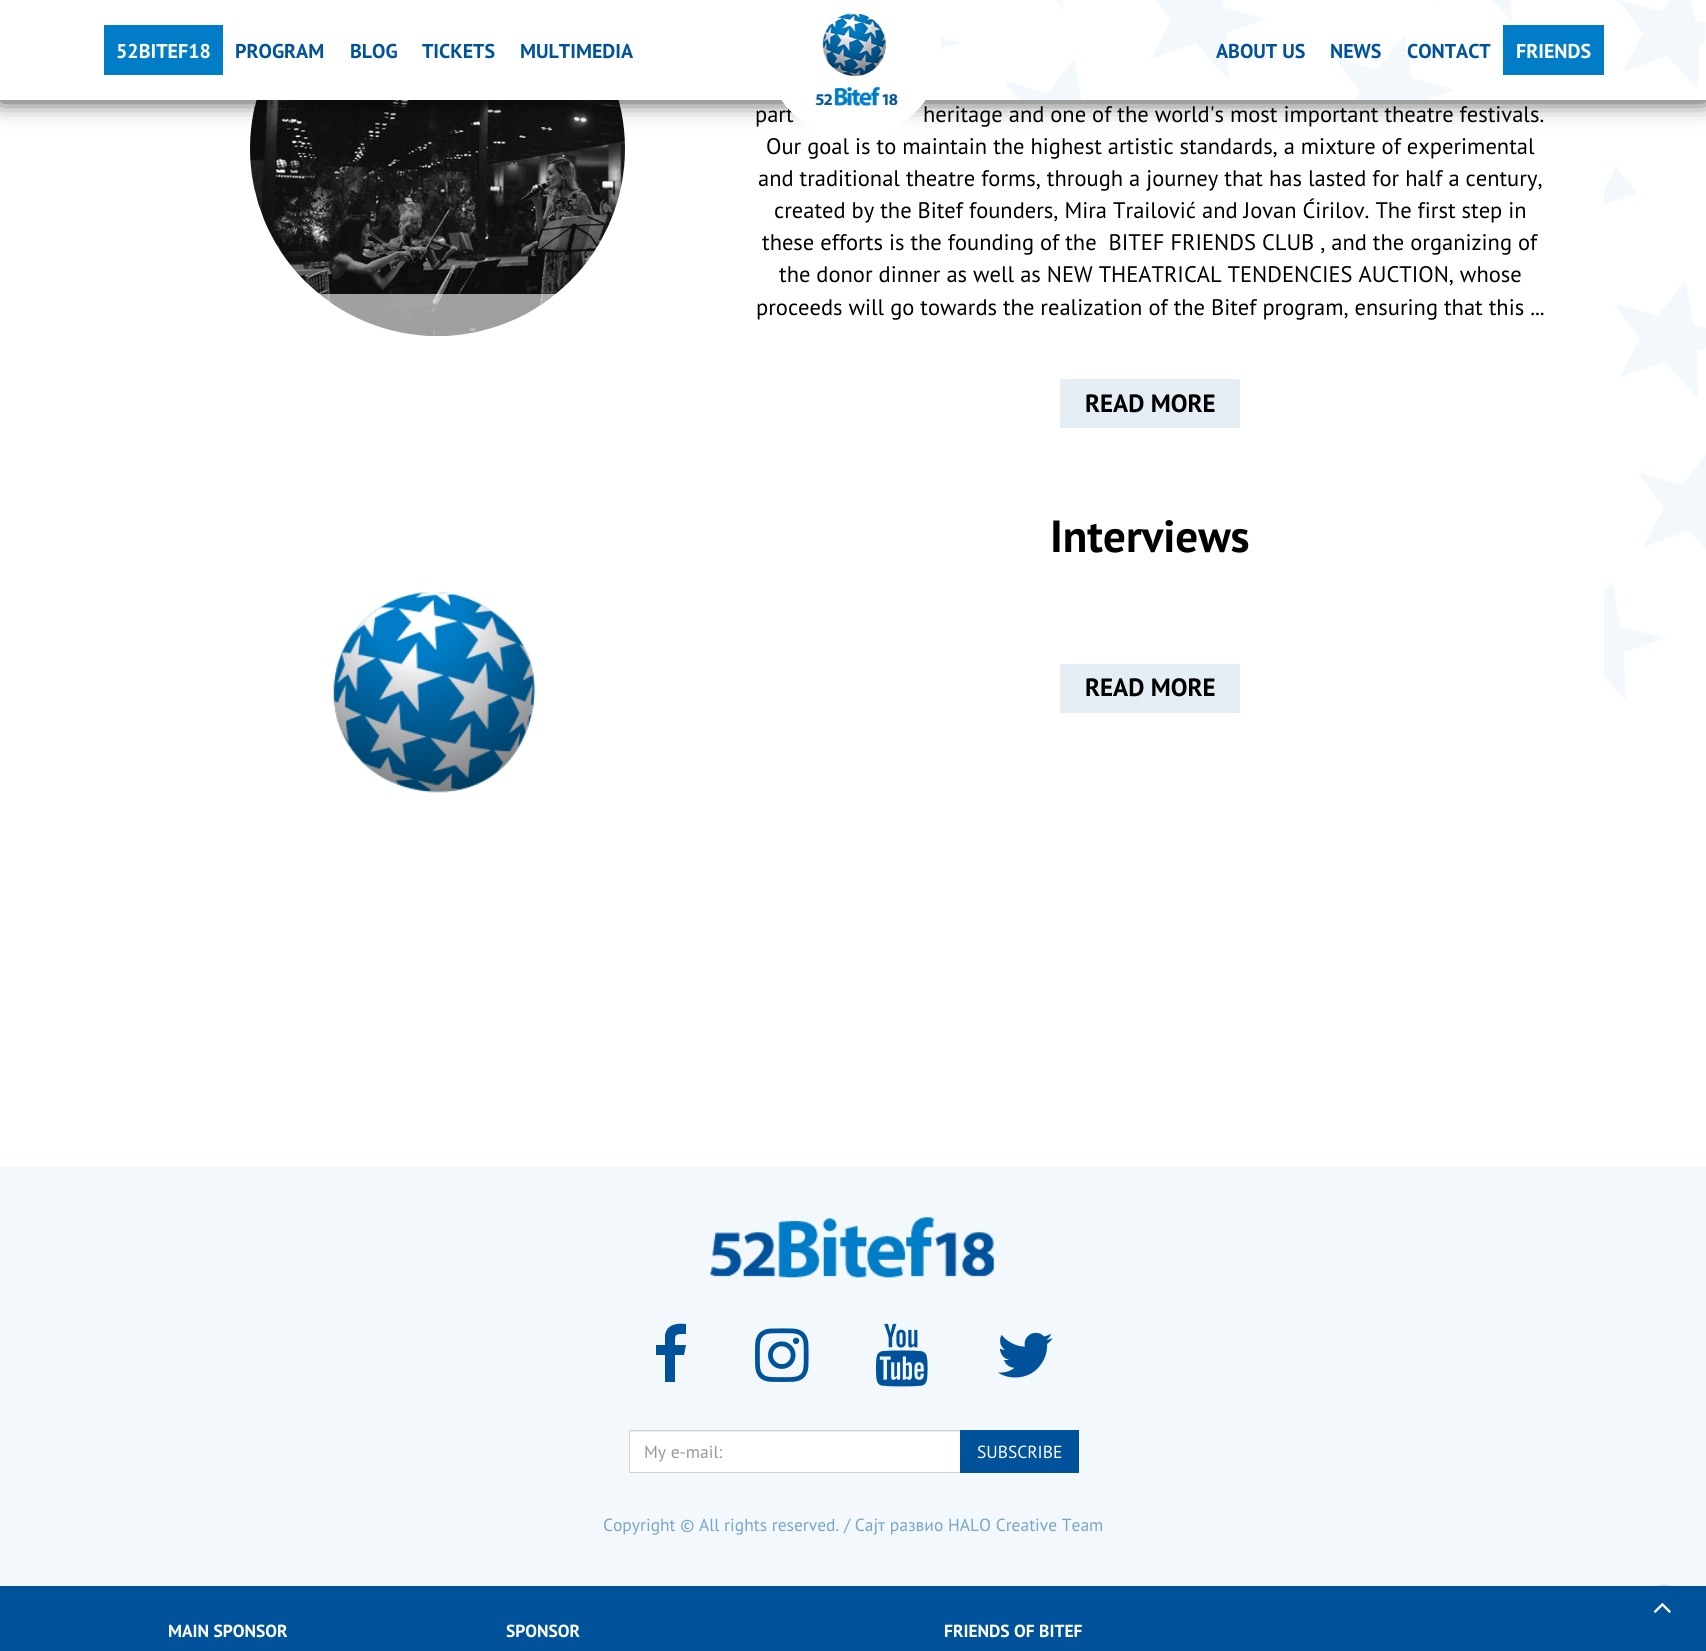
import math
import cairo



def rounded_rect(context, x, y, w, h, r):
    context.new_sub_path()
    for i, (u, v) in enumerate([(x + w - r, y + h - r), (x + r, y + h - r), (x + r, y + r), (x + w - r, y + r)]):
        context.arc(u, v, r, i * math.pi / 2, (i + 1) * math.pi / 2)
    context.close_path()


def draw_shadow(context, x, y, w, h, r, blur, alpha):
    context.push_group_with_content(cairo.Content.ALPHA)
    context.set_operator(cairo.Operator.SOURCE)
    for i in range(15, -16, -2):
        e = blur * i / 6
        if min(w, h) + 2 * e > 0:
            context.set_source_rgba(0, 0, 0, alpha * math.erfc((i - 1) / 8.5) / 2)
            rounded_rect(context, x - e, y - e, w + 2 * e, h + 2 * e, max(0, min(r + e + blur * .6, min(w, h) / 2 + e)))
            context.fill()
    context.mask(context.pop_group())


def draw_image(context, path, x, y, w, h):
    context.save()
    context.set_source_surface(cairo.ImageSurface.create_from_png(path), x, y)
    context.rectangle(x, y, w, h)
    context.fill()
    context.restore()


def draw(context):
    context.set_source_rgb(1, 1, 1)
    context.paint()
    draw_image(context, "images/4.png", 250, 100, 375, 236)
    context.set_source_rgb(0, 0, 0)
    draw_shadow(context, 0, -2, 1706, 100, 0, 12.5, 1)
    context.set_source_rgb(1, 1, 1)
    context.rectangle(0, 0, 1706, 100)
    context.fill()
    draw_image(context, "images/1.png", 939, 0, 767, 100)
    context.set_source_rgb(0, 125 / 255, 198 / 255)
    context.rectangle(104, 25, 119, 50)
    context.fill()
    context.rectangle(1503, 25, 101, 50)
    context.fill()
    draw_image(context, "images/3.png", 1604, 165, 102, 534)
    context.set_source_rgb(230 / 255, 238 / 255, 245 / 255)
    context.rectangle(1060, 379, 180, 49)
    context.fill()
    draw_image(context, "images/5.png", 333, 592, 203, 201)
    context.rectangle(1060, 664, 180, 49)
    context.fill()
    context.set_source_rgb(0, 82 / 255, 155 / 255)
    context.rectangle(0, 1586, 1706, 65)
    context.fill()
    context.set_source_rgb(242 / 255, 248 / 255, 252 / 255)
    context.rectangle(0, 1166, 1706, 420)
    context.fill()
    draw_image(context, "images/6.png", 710, 1217, 284, 61)
    context.set_source_rgb(0, 82 / 255, 155 / 255)
    context.new_path()
    context.move_to(686, 1324)
    context.line_to(686, 1334)
    context.curve_to(674, 1334, 675, 1334, 675, 1345)
    context.line_to(686, 1345)
    context.line_to(684, 1355)
    context.line_to(675, 1355)
    context.line_to(675, 1382)
    context.line_to(665, 1382)
    context.line_to(665, 1355)
    context.line_to(656, 1355)
    context.line_to(656, 1345)
    context.line_to(665, 1345)
    context.line_to(665, 1335)
    context.curve_to(667, 1324, 677, 1323, 686, 1324)
    context.close_path()
    context.fill()
    draw_image(context, "images/7.png", 755, 1328, 54, 54)
    draw_image(context, "images/8.png", 875, 1323, 53, 64)
    draw_image(context, "images/9.png", 998, 1332, 55, 46)
    context.set_source_rgb(1, 1, 1)
    context.rectangle(630, 1432, 330, 40)
    context.fill()
    context.set_source_rgb(236 / 255, 236 / 255, 236 / 255)
    context.rectangle(630, 1431, 330, 1)
    context.fill()
    context.rectangle(629.5, 1430.5, 331, 42)
    context.set_source_rgb(210 / 255, 210 / 255, 210 / 255)
    context.set_line_width(1)
    context.stroke()
    context.set_source_rgb(0, 82 / 255, 155 / 255)
    context.rectangle(960, 1430, 119, 43)
    context.fill()
    context.set_source_rgba(0, 82 / 255, 155 / 255, 0.2)
    context.arc(1664, 1609, 24, 0, 2 * math.pi)
    context.fill()
    draw_image(context, "images/10.png", 1653, 1603, 18, 10)
    context.select_font_face("PT Sans", cairo.FontSlant.NORMAL, cairo.FontWeight.BOLD)
    context.set_font_size(20)
    context.set_source_rgb(1, 1, 1)
    context.move_to(116, 58)
    context.show_text("52BITEF18")
    context.set_source_rgb(0, 82 / 255, 155 / 255)
    context.move_to(235, 58)
    context.show_text("PROGRAM")
    context.move_to(350, 58)
    context.show_text("BLOG")
    context.move_to(422, 58)
    context.show_text("TICKETS")
    context.move_to(520, 58)
    context.show_text("MULTIMEDIA")
    context.move_to(1216, 58)
    context.show_text("ABOUT US")
    context.move_to(1330, 58)
    context.show_text("NEWS")
    context.move_to(1407, 58)
    context.show_text("CONTACT")
    context.set_source_rgb(1, 1, 1)
    context.move_to(1516, 58)
    context.show_text("FRIENDS")
    context.select_font_face("PT Sans")
    context.set_font_size(22.5)
    context.set_source_rgb(0, 0, 0)
    context.move_to(755, 122)
    context.show_text("part")
    context.move_to(923, 122)
    context.show_text("heritage and one of the world's most important theatre festivals.")
    context.set_source_rgb(1, 1, 1)
    context.new_path()
    context.arc(853.5, 50.5, 87.5, 0, 2 * math.pi)
    context.fill()
    draw_image(context, "images/2.png", 815, 13, 83, 93)
    context.set_source_rgb(0, 0, 0)
    context.move_to(766, 154)
    context.show_text("Our goal is to maintain the highest artistic standards, a mixture of experimental")
    context.move_to(758, 186)
    context.show_text("and traditional theatre forms, through a journey that has lasted for half a century,")
    context.move_to(774, 218)
    context.show_text("created by the Bitef founders, Mira Trailović and Jovan Ćirilov. The first step in")
    context.move_to(762, 250)
    context.show_text("these efforts is the founding of the  BITEF FRIENDS CLUB , and the organizing of")
    context.move_to(779, 282)
    context.show_text("the donor dinner as well as NEW THEATRICAL TENDENCIES AUCTION, whose")
    context.move_to(756, 315)
    context.show_text("proceeds will go towards the realization of the Bitef program, ensuring that this ...")
    context.select_font_face("PT Sans", cairo.FontSlant.NORMAL, cairo.FontWeight.BOLD)
    context.set_font_size(25)
    context.move_to(1085, 412)
    context.show_text("READ MORE")
    context.set_font_size(45)
    context.move_to(1050, 552)
    context.show_text("Interviews")
    context.set_font_size(25)
    context.move_to(1085, 696)
    context.show_text("READ MORE")
    context.select_font_face("PT Sans")
    context.set_font_size(17.5)
    context.set_source_rgb(153 / 255, 153 / 255, 153 / 255)
    context.move_to(644, 1458)
    context.show_text("My e-mail:")
    context.set_source_rgb(1, 1, 1)
    context.move_to(977, 1458)
    context.show_text("SUBSCRIBE")
    context.set_source_rgb(121 / 255, 165 / 255, 203 / 255)
    context.move_to(603, 1531)
    context.show_text("Copyright © All rights reserved. / Сајт развио HALO Creative Team")
    context.select_font_face("PT Sans", cairo.FontSlant.NORMAL, cairo.FontWeight.BOLD)
    context.set_source_rgb(1, 1, 1)
    context.move_to(168, 1637)
    context.show_text("MAIN SPONSOR")
    context.move_to(506, 1637)
    context.show_text("SPONSOR")
    context.move_to(944, 1637)
    context.show_text("FRIENDS OF BITEF")


surface = cairo.ImageSurface(cairo.Format.RGB24, 1706, 1651)
context = cairo.Context(surface)
options = cairo.FontOptions()
options.set_hint_metrics(cairo.HintMetrics.OFF)
options.set_hint_style(cairo.HintStyle.NONE)
context.set_font_options(options)
context.set_miter_limit(4)
draw(context)
surface.write_to_png("out.png")
